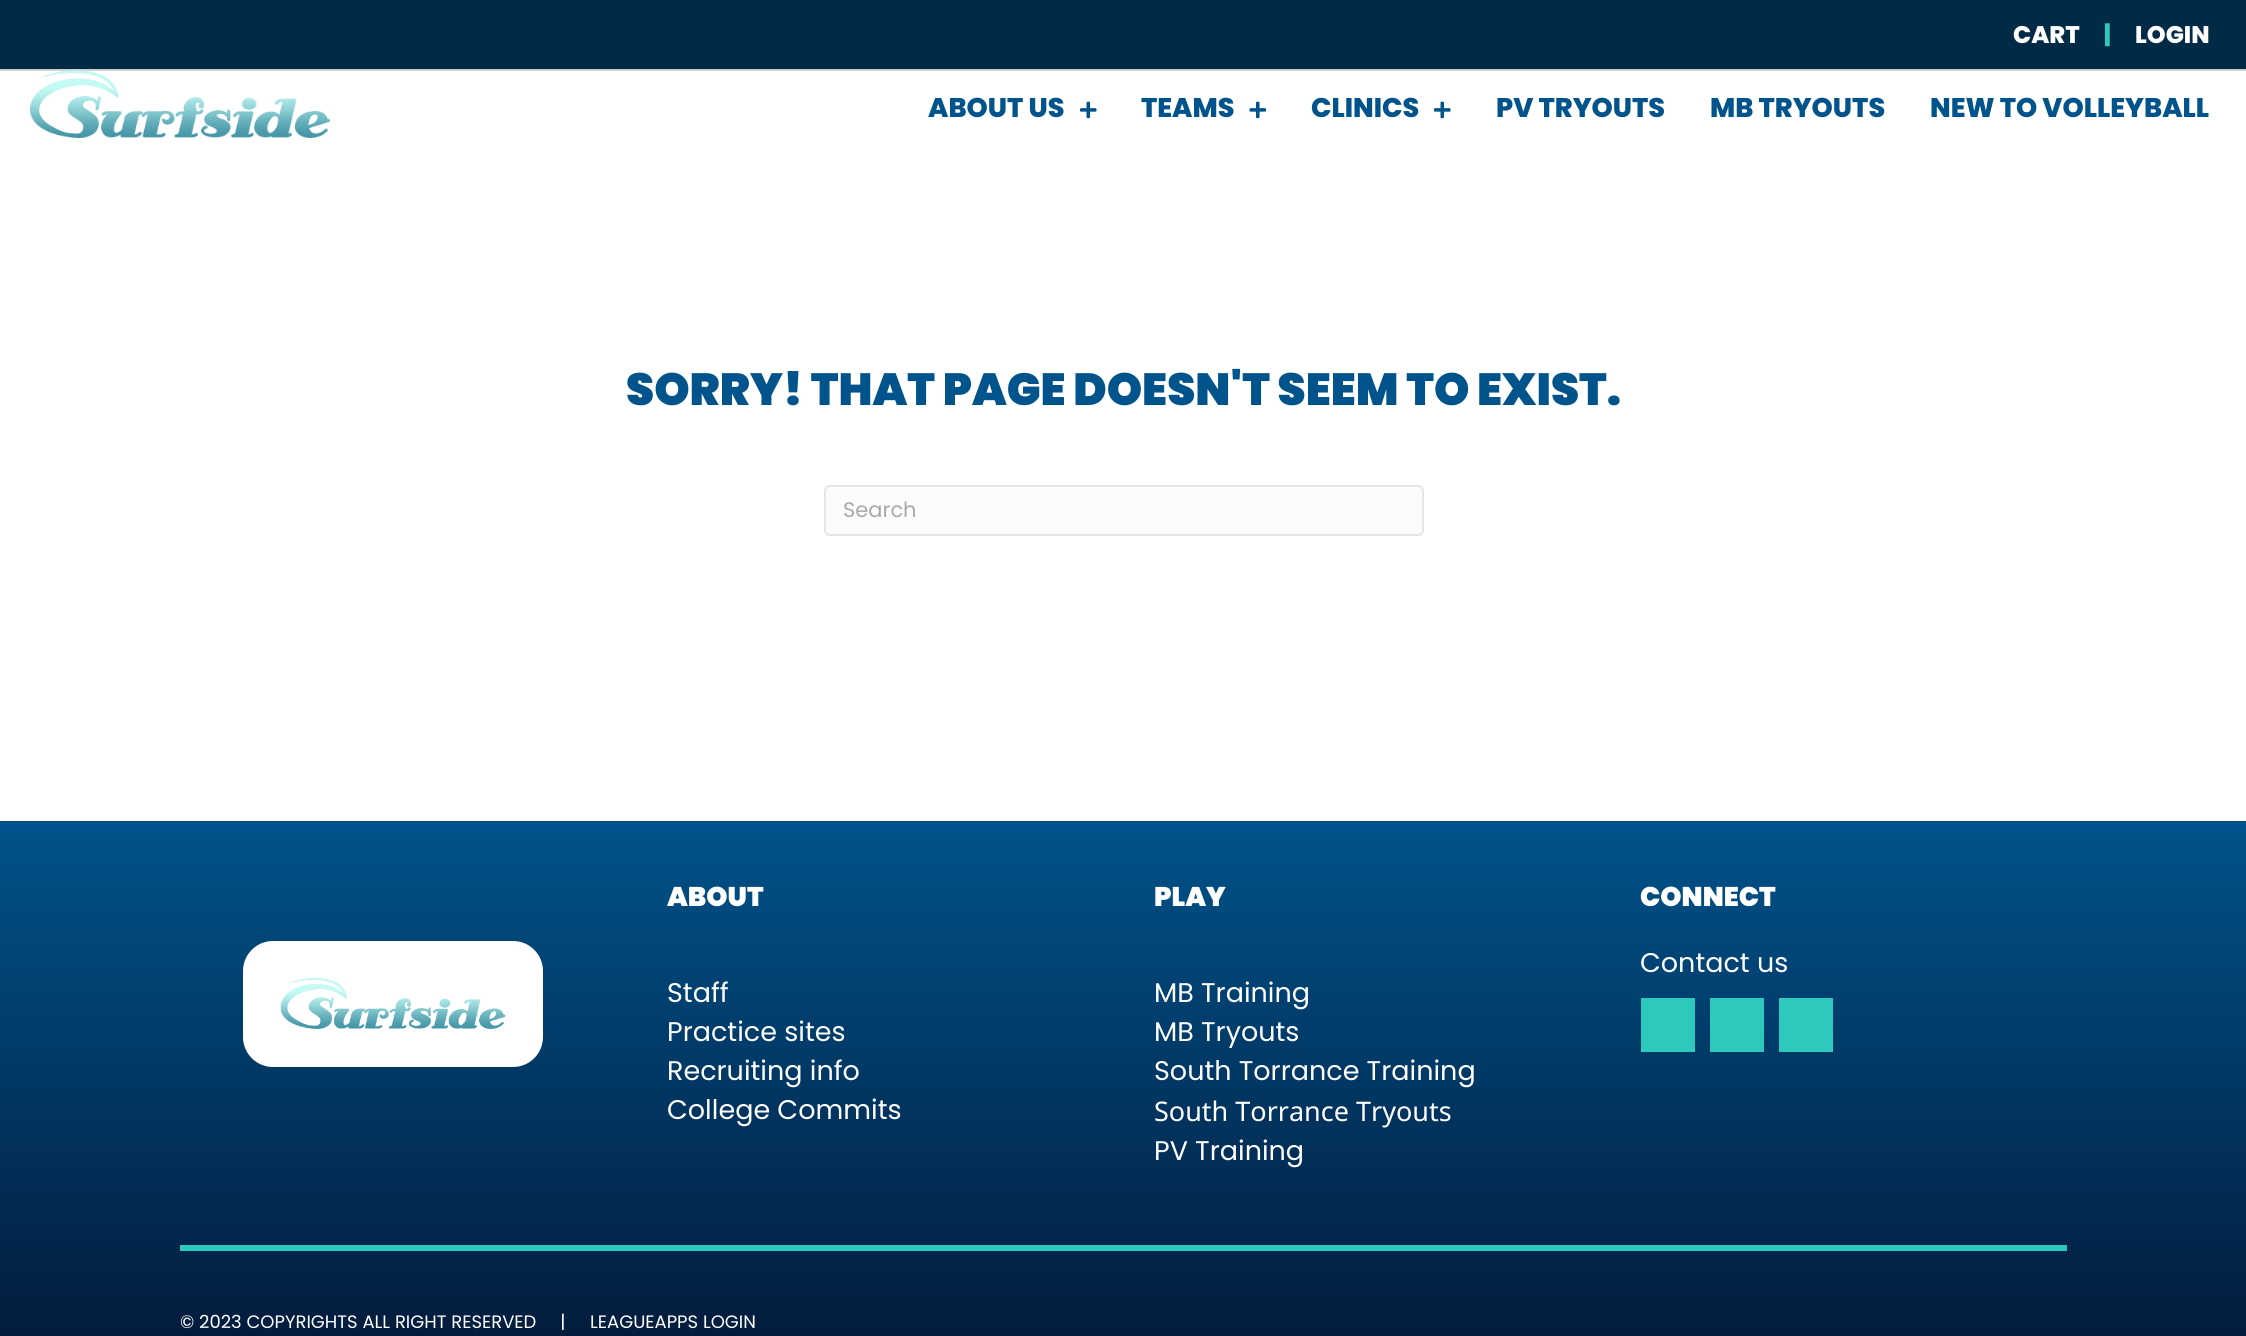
import math
import cairo



def rounded_rect(context, x, y, w, h, r):
    context.new_sub_path()
    for i, (u, v) in enumerate([(x + w - r, y + h - r), (x + r, y + h - r), (x + r, y + r), (x + w - r, y + r)]):
        context.arc(u, v, r, i * math.pi / 2, (i + 1) * math.pi / 2)
    context.close_path()


def draw_image(context, path, x, y, w, h):
    context.save()
    context.set_source_surface(cairo.ImageSurface.create_from_png(path), x, y)
    context.rectangle(x, y, w, h)
    context.fill()
    context.restore()


def draw(context):
    context.set_source_rgb(1, 1, 1)
    context.paint()
    context.set_source_rgb(1 / 255, 42 / 255, 70 / 255)
    context.rectangle(0, 0, 2246, 69)
    context.fill()
    context.set_source_rgb(209 / 255, 209 / 255, 209 / 255)
    context.rectangle(0, 69, 2246, 2)
    context.fill()
    draw_image(context, "images/1.png", 30, 70, 300, 68)
    draw_image(context, "images/2.png", 1080, 101, 17, 18)
    draw_image(context, "images/3.png", 1249, 101, 18, 18)
    draw_image(context, "images/2.png", 1434, 101, 17, 18)
    context.set_source_rgb(252 / 255, 252 / 255, 252 / 255)
    rounded_rect(context, 825, 486, 598, 49, 5)
    context.fill_preserve()
    context.set_source_rgb(230 / 255, 230 / 255, 230 / 255)
    context.stroke()
    gradient = cairo.LinearGradient(1124, 820, 1124, 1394)
    gradient.add_color_stop_rgba(0, 0, 83 / 255, 139 / 255, 1)
    gradient.add_color_stop_rgba(1, 3 / 255, 22 / 255, 52 / 255, 1)
    context.set_source(gradient)
    context.rectangle(0, 821, 2246, 515)
    context.fill()
    context.set_source_rgb(44 / 255, 201 / 255, 188 / 255)
    context.rectangle(1641, 998, 54, 54)
    context.fill()
    context.rectangle(1710, 998, 54, 54)
    context.fill()
    context.rectangle(1779, 998, 54, 54)
    context.fill()
    context.set_source_rgb(1, 1, 1)
    rounded_rect(context, 243, 941, 300, 126, 30)
    context.fill()
    draw_image(context, "images/4.png", 280, 978, 226, 51)
    context.set_source_rgb(44 / 255, 201 / 255, 188 / 255)
    context.rectangle(180, 1245, 1887, 6)
    context.fill()
    context.select_font_face("Poppins ExtraBold")
    context.set_font_size(24)
    context.set_source_rgb(1, 1, 1)
    context.move_to(2013, 43)
    context.show_text("CART")
    context.set_source_rgb(44 / 255, 201 / 255, 188 / 255)
    context.move_to(2104, 43)
    context.show_text("|")
    context.set_source_rgb(1, 1, 1)
    context.move_to(2135, 43)
    context.show_text("LOGIN")
    context.set_font_size(27)
    context.set_source_rgb(0, 83 / 255, 139 / 255)
    context.move_to(928, 117)
    context.show_text("ABOUT US")
    context.move_to(1141, 117)
    context.show_text("TEAMS")
    context.move_to(1311, 117)
    context.show_text("CLINICS")
    context.move_to(1496, 117)
    context.show_text("PV TRYOUTS")
    context.move_to(1710, 117)
    context.show_text("MB TRYOUTS")
    context.move_to(1930, 117)
    context.show_text("NEW TO VOLLEYBALL")
    context.select_font_face("Poppins Black")
    context.set_font_size(45)
    context.move_to(626, 405)
    context.show_text("SORRY! THAT PAGE DOESN'T SEEM TO EXIST.")
    context.select_font_face("Poppins")
    context.set_font_size(21)
    context.set_source_rgb(169 / 255, 169 / 255, 169 / 255)
    context.move_to(843, 517)
    context.show_text("Search")
    context.select_font_face("Poppins Black")
    context.set_font_size(27)
    context.set_source_rgb(1, 1, 1)
    context.move_to(667, 906)
    context.show_text("ABOUT")
    context.select_font_face("Poppins")
    context.move_to(667, 1002)
    context.show_text("Staff")
    context.move_to(667, 1041)
    context.show_text("Practice sites")
    context.move_to(667, 1080)
    context.show_text("Recruiting info")
    context.move_to(667, 1119)
    context.show_text("College Commits")
    context.select_font_face("Poppins Black")
    context.move_to(1154, 906)
    context.show_text("PLAY")
    context.select_font_face("Poppins")
    context.move_to(1154, 1002)
    context.show_text("MB Training")
    context.move_to(1154, 1041)
    context.show_text("MB Tryouts")
    context.move_to(1154, 1080)
    context.show_text("South Torrance Training")
    context.select_font_face("Noto Sans")
    context.move_to(1154, 1121)
    context.show_text("South Torrance Tryouts")
    context.select_font_face("Poppins")
    context.move_to(1154, 1160)
    context.show_text("PV Training")
    context.select_font_face("Poppins Black")
    context.move_to(1640, 906)
    context.show_text("CONNECT")
    context.select_font_face("Poppins")
    context.move_to(1640, 972)
    context.show_text("Contact us")
    context.set_font_size(18)
    context.move_to(180, 1328)
    context.show_text("© 2023 COPYRIGHTS ALL RIGHT RESERVED     |")
    context.move_to(590, 1328)
    context.show_text("LEAGUEAPPS LOGIN")


surface = cairo.ImageSurface(cairo.Format.RGB24, 2246, 1336)
context = cairo.Context(surface)
options = cairo.FontOptions()
options.set_hint_metrics(cairo.HintMetrics.OFF)
options.set_hint_style(cairo.HintStyle.NONE)
context.set_font_options(options)
context.set_miter_limit(4)
draw(context)
surface.write_to_png("out.png")
